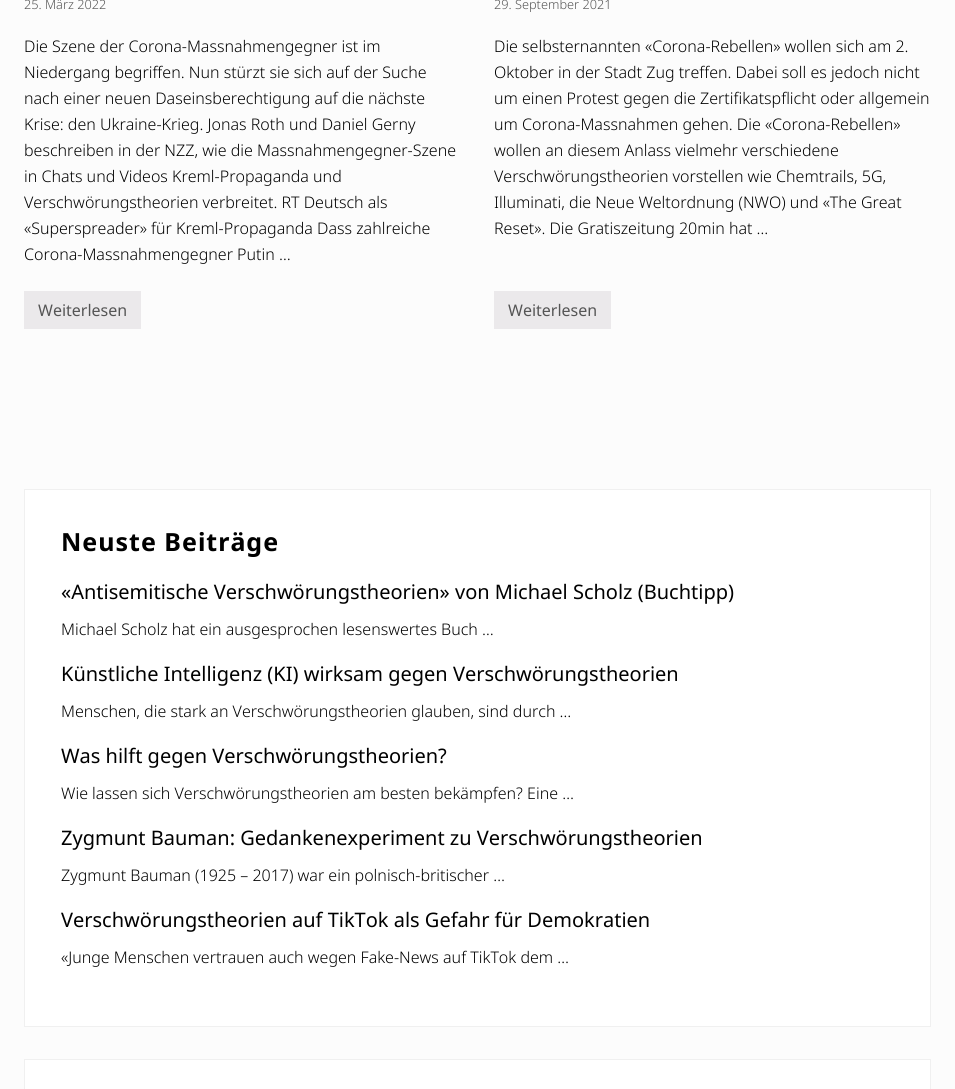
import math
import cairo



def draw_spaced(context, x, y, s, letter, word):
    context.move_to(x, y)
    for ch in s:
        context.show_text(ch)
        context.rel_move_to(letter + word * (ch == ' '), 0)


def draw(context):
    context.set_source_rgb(252 / 255, 252 / 255, 252 / 255)
    context.paint()
    context.set_source_rgb(235 / 255, 233 / 255, 235 / 255)
    context.rectangle(24, 291, 117, 38)
    context.fill()
    context.rectangle(494, 291, 117, 38)
    context.fill()
    context.set_source_rgb(1, 1, 1)
    context.rectangle(24.5, 489.5, 906, 537)
    context.fill_preserve()
    context.set_source_rgb(240 / 255, 240 / 255, 240 / 255)
    context.set_line_width(1)
    context.stroke()
    context.set_source_rgb(1, 1, 1)
    context.rectangle(24.5, 1059.5, 906, 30)
    context.fill_preserve()
    context.set_source_rgb(240 / 255, 240 / 255, 240 / 255)
    context.stroke()
    context.select_font_face("Noto Sans Light")
    context.set_font_size(12.75)
    context.set_source_rgb(85 / 255, 85 / 255, 85 / 255)
    context.move_to(24, 9)
    context.show_text("25. März 2022")
    context.set_font_size(16)
    context.set_source_rgb(0, 0, 0)
    context.move_to(24, 52)
    context.show_text("Die Szene der Corona-Massnahmengegner ist im")
    context.move_to(24, 78)
    context.show_text("Niedergang begriffen. Nun stürzt sie sich auf der Suche")
    context.move_to(24, 104)
    context.show_text("nach einer neuen Daseinsberechtigung auf die nächste")
    context.move_to(24, 130)
    context.show_text("Krise: den Ukraine-Krieg. Jonas Roth und Daniel Gerny")
    context.move_to(24, 156)
    context.show_text("beschreiben in der NZZ, wie die Massnahmengegner-Szene")
    context.move_to(24, 182)
    context.show_text("in Chats und Videos Kreml-Propaganda und")
    context.move_to(24, 208)
    context.show_text("Verschwörungstheorien verbreitet. RT Deutsch als")
    context.move_to(24, 234)
    context.show_text("«Superspreader» für Kreml-Propaganda Dass zahlreiche")
    context.move_to(24, 260)
    context.show_text("Corona-Massnahmengegner Putin …")
    context.select_font_face("Noto Sans")
    context.set_source_rgb(85 / 255, 85 / 255, 85 / 255)
    context.move_to(38, 316)
    context.show_text("Weiterlesen")
    context.select_font_face("Noto Sans Light")
    context.set_font_size(12.75)
    context.move_to(494, 9)
    context.show_text("29. September 2021")
    context.set_font_size(16)
    context.set_source_rgb(0, 0, 0)
    context.move_to(494, 52)
    context.show_text("Die selbsternannten «Corona-Rebellen» wollen sich am 2.")
    context.move_to(494, 78)
    context.show_text("Oktober in der Stadt Zug treffen. Dabei soll es jedoch nicht")
    context.move_to(494, 104)
    context.show_text("um einen Protest gegen die Zertifikatspflicht oder allgemein")
    context.move_to(494, 130)
    context.show_text("um Corona-Massnahmen gehen. Die «Corona-Rebellen»")
    context.move_to(494, 156)
    context.show_text("wollen an diesem Anlass vielmehr verschiedene")
    context.move_to(494, 182)
    context.show_text("Verschwörungstheorien vorstellen wie Chemtrails, 5G,")
    context.move_to(494, 208)
    context.show_text("Illuminati, die Neue Weltordnung (NWO) und «The Great")
    context.move_to(494, 234)
    context.show_text("Reset». Die Gratiszeitung 20min hat …")
    context.select_font_face("Noto Sans")
    context.set_source_rgb(85 / 255, 85 / 255, 85 / 255)
    context.move_to(508, 316)
    context.show_text("Weiterlesen")
    context.select_font_face("Noto Sans", cairo.FontSlant.NORMAL, cairo.FontWeight.BOLD)
    context.set_font_size(25)
    context.set_source_rgb(0, 0, 0)
    draw_spaced(context, 61, 551, "Neuste Beiträge", 1, 0)
    context.select_font_face("Noto Sans")
    context.set_font_size(20)
    context.move_to(61, 599)
    context.show_text("«Antisemitische Verschwörungstheorien» von Michael Scholz (Buchtipp)")
    context.select_font_face("Noto Sans Light")
    context.set_font_size(16)
    context.move_to(61, 635)
    context.show_text("Michael Scholz hat ein ausgesprochen lesenswertes Buch …")
    context.select_font_face("Noto Sans")
    context.set_font_size(20)
    context.move_to(61, 681)
    context.show_text("Künstliche Intelligenz (KI) wirksam gegen Verschwörungstheorien")
    context.select_font_face("Noto Sans Light")
    context.set_font_size(16)
    context.move_to(61, 717)
    context.show_text("Menschen, die stark an Verschwörungstheorien glauben, sind durch …")
    context.select_font_face("Noto Sans")
    context.set_font_size(20)
    context.move_to(61, 763)
    context.show_text("Was hilft gegen Verschwörungstheorien?")
    context.select_font_face("Noto Sans Light")
    context.set_font_size(16)
    context.move_to(61, 799)
    context.show_text("Wie lassen sich Verschwörungstheorien am besten bekämpfen? Eine …")
    context.select_font_face("Noto Sans")
    context.set_font_size(20)
    context.move_to(61, 845)
    context.show_text("Zygmunt Bauman: Gedankenexperiment zu Verschwörungstheorien")
    context.select_font_face("Noto Sans Light")
    context.set_font_size(16)
    context.move_to(61, 881)
    context.show_text("Zygmunt Bauman (1925 – 2017) war ein polnisch-britischer …")
    context.select_font_face("Noto Sans")
    context.set_font_size(20)
    context.move_to(61, 927)
    context.show_text("Verschwörungstheorien auf TikTok als Gefahr für Demokratien")
    context.select_font_face("Noto Sans Light")
    context.set_font_size(16)
    context.move_to(61, 963)
    context.show_text("«Junge Menschen vertrauen auch wegen Fake-News auf TikTok dem …")


surface = cairo.ImageSurface(cairo.Format.RGB24, 955, 1089)
context = cairo.Context(surface)
options = cairo.FontOptions()
options.set_hint_metrics(cairo.HintMetrics.OFF)
options.set_hint_style(cairo.HintStyle.NONE)
context.set_font_options(options)
context.set_miter_limit(4)
draw(context)
surface.write_to_png("out.png")
